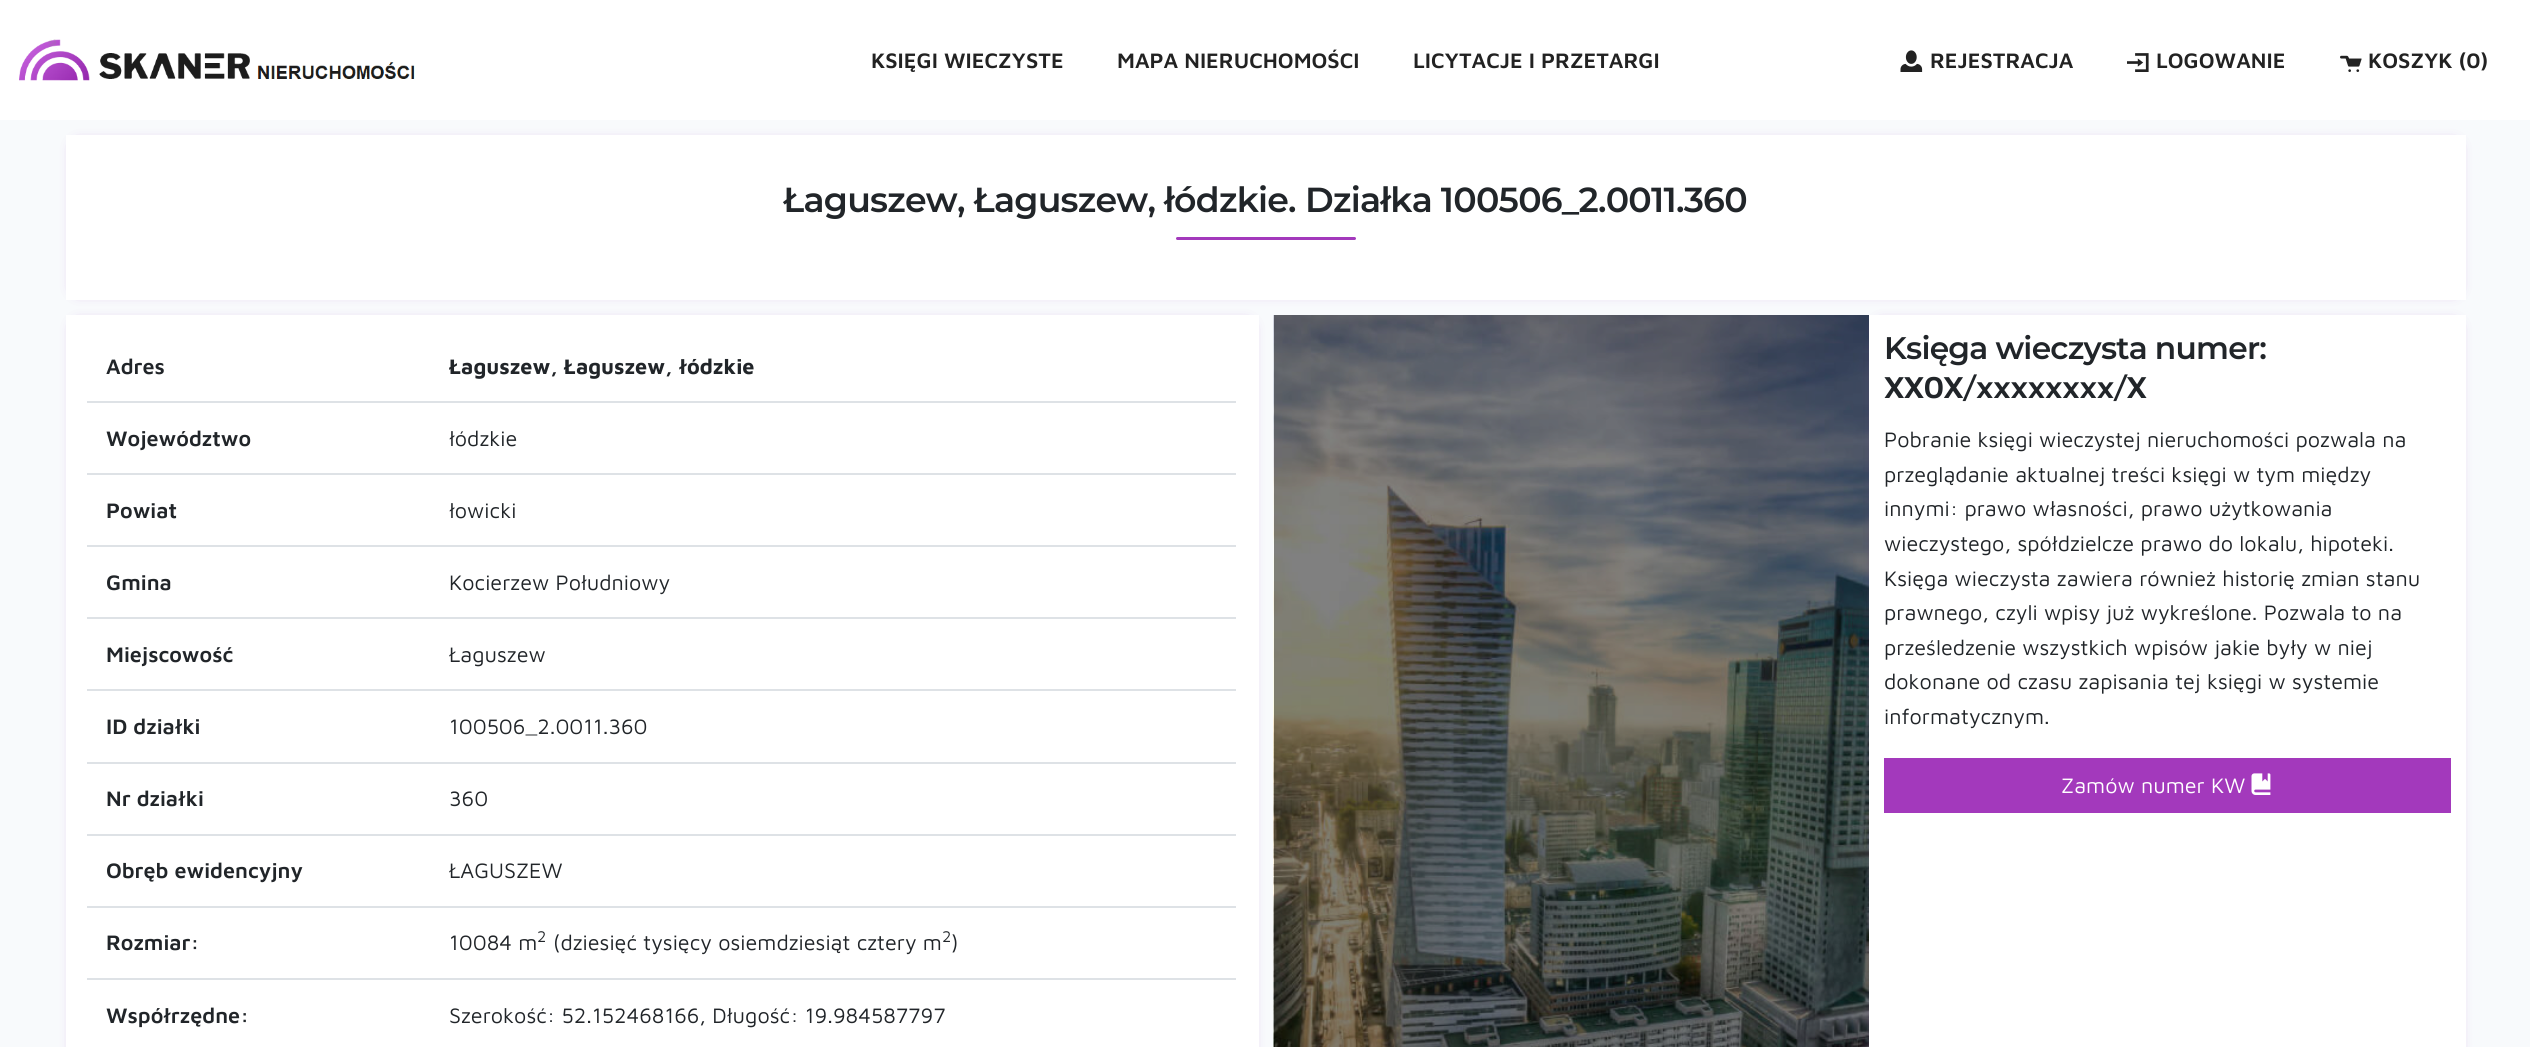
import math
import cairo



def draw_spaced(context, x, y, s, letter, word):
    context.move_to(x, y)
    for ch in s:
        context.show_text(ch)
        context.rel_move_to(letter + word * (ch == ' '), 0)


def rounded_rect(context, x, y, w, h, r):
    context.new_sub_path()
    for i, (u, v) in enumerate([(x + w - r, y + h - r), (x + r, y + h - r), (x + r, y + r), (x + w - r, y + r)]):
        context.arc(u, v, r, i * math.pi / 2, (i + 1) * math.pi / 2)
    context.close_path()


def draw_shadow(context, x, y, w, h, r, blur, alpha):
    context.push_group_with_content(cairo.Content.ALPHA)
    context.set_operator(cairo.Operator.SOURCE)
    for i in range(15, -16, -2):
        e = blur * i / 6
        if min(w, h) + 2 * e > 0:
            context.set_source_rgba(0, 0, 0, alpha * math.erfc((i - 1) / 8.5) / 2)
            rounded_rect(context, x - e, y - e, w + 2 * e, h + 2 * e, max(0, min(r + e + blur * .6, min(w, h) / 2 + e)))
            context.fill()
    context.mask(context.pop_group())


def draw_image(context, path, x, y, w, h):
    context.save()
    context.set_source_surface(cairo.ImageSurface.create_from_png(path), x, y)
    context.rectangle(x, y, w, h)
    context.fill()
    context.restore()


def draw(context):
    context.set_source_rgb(248 / 255, 250 / 255, 252 / 255)
    context.paint()
    context.set_source_rgb(1, 1, 1)
    context.rectangle(0, 0, 2530, 120)
    context.fill()
    draw_image(context, "images/1.png", 19, 39, 396, 42)
    draw_image(context, "images/2.png", 1900, 50, 23, 22)
    draw_image(context, "images/3.png", 2127, 53, 22, 19)
    draw_image(context, "images/4.png", 2340, 55, 22, 17)
    context.set_source_rgb(163 / 255, 57 / 255, 188 / 255)
    draw_shadow(context, 78, 147, 2376, 141, 0, 7.5, 1)
    context.set_source_rgb(1, 1, 1)
    context.rectangle(66, 135, 2400, 165)
    context.fill()
    context.set_source_rgb(163 / 255, 57 / 255, 188 / 255)
    rounded_rect(context, 1176, 237, 180, 3, 1.5)
    context.fill()
    context.set_source_rgb(163 / 255, 57 / 255, 188 / 255)
    draw_shadow(context, 78, 327, 1169, 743, 0, 7.5, 1)
    context.set_source_rgb(1, 1, 1)
    context.rectangle(66, 315, 1193, 732)
    context.fill()
    context.set_source_rgb(222 / 255, 226 / 255, 230 / 255)
    context.rectangle(87, 401, 1149, 2)
    context.fill()
    context.rectangle(87, 473, 1149, 2)
    context.fill()
    context.rectangle(87, 545, 1149, 2)
    context.fill()
    context.rectangle(87, 617, 1149, 2)
    context.fill()
    context.rectangle(87, 689, 1149, 2)
    context.fill()
    context.rectangle(87, 762, 1149, 2)
    context.fill()
    context.rectangle(87, 834, 1149, 2)
    context.fill()
    context.rectangle(87, 906, 1149, 2)
    context.fill()
    context.rectangle(87, 978, 1149, 2)
    context.fill()
    draw_image(context, "images/5.png", 1273, 315, 596, 732)
    context.set_source_rgb(163 / 255, 57 / 255, 188 / 255)
    draw_shadow(context, 1881, 327, 573, 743, 0, 7.5, 1)
    context.set_source_rgb(1, 1, 1)
    context.rectangle(1869, 315, 597, 732)
    context.fill()
    context.set_source_rgb(163 / 255, 57 / 255, 188 / 255)
    context.rectangle(1884, 758, 567, 55)
    context.fill()
    draw_image(context, "images/6.png", 2251, 773, 20, 22)
    context.select_font_face("Maven Pro SemiBold")
    context.set_font_size(21.6)
    context.set_source_rgb(34 / 255, 34 / 255, 34 / 255)
    context.move_to(871, 68)
    context.show_text("KSIĘGI WIECZYSTE")
    context.move_to(1117, 68)
    context.show_text("MAPA NIERUCHOMOŚCI")
    context.move_to(1413, 68)
    context.show_text("LICYTACJE I PRZETARGI")
    context.move_to(1930, 68)
    context.show_text("REJESTRACJA")
    context.move_to(2156, 68)
    context.show_text("LOGOWANIE")
    context.move_to(2368, 68)
    context.show_text("KOSZYK (0)")
    context.select_font_face("Montserrat SemiBold")
    context.set_font_size(34.75)
    context.set_source_rgb(33 / 255, 37 / 255, 41 / 255)
    draw_spaced(context, 783, 212, "Łaguszew, Łaguszew, łódzkie.", -0.75, 0)
    draw_spaced(context, 1305, 212, "Działka 100506_2.0011.360", -0.75, 0)
    context.select_font_face("Maven Pro SemiBold")
    context.set_font_size(21.6)
    context.move_to(106, 374)
    context.show_text("Adres")
    context.select_font_face("Maven Pro", cairo.FontSlant.NORMAL, cairo.FontWeight.BOLD)
    context.move_to(449, 374)
    context.show_text("Łaguszew, Łaguszew, łódzkie")
    context.select_font_face("Maven Pro SemiBold")
    context.move_to(106, 446)
    context.show_text("Województwo")
    context.select_font_face("Maven Pro")
    context.move_to(449, 446)
    context.show_text("łódzkie")
    context.select_font_face("Maven Pro SemiBold")
    context.move_to(106, 518)
    context.show_text("Powiat")
    context.select_font_face("Maven Pro")
    context.move_to(449, 518)
    context.show_text("łowicki")
    context.select_font_face("Maven Pro SemiBold")
    context.move_to(106, 590)
    context.show_text("Gmina")
    context.select_font_face("Maven Pro")
    context.move_to(449, 590)
    context.show_text("Kocierzew Południowy")
    context.select_font_face("Maven Pro SemiBold")
    context.move_to(106, 662)
    context.show_text("Miejscowość")
    context.select_font_face("Maven Pro")
    context.move_to(449, 662)
    context.show_text("Łaguszew")
    context.select_font_face("Maven Pro SemiBold")
    context.move_to(106, 734)
    context.show_text("ID działki")
    context.select_font_face("Maven Pro")
    context.move_to(449, 734)
    context.show_text("100506_2.0011.360")
    context.select_font_face("Maven Pro SemiBold")
    context.move_to(106, 806)
    context.show_text("Nr działki")
    context.select_font_face("Maven Pro")
    context.move_to(449, 806)
    context.show_text("360")
    context.select_font_face("Maven Pro SemiBold")
    context.move_to(106, 878)
    context.show_text("Obręb ewidencyjny")
    context.select_font_face("Maven Pro")
    context.move_to(449, 878)
    context.show_text("ŁAGUSZEW")
    context.select_font_face("Maven Pro SemiBold")
    context.move_to(106, 950)
    context.show_text("Rozmiar:")
    context.select_font_face("Maven Pro")
    context.move_to(449, 950)
    context.show_text("10084 m")
    context.set_font_size(16)
    context.move_to(537, 942)
    context.show_text("2")
    context.set_font_size(21.6)
    context.move_to(553, 950)
    context.show_text("(dziesięć tysięcy osiemdziesiąt cztery m")
    context.set_font_size(16)
    context.move_to(942, 942)
    context.show_text("2")
    context.set_font_size(21.6)
    context.move_to(951, 950)
    context.show_text(")")
    context.select_font_face("Maven Pro SemiBold")
    context.move_to(106, 1023)
    context.show_text("Współrzędne:")
    context.select_font_face("Maven Pro")
    context.move_to(449, 1023)
    context.show_text("Szerokość: 52.152468166, Długość: 19.984587797")
    context.select_font_face("Montserrat SemiBold")
    context.set_font_size(31.25)
    draw_spaced(context, 1884, 359, "Księga wieczysta numer:", -0.75, 0)
    context.select_font_face("Maven Pro SemiBold")
    draw_spaced(context, 1884, 398, "XX0X/xxxxxxxx/X", -0.75, 0)
    context.select_font_face("Maven Pro")
    context.set_font_size(21.6)
    context.move_to(1884, 447)
    context.show_text("Pobranie księgi wieczystej nieruchomości pozwala na")
    context.move_to(1884, 482)
    context.show_text("przeglądanie aktualnej treści księgi w tym między")
    context.move_to(1884, 516)
    context.show_text("innymi: prawo własności, prawo użytkowania")
    context.move_to(1884, 551)
    context.show_text("wieczystego, spółdzielcze prawo do lokalu, hipoteki.")
    context.move_to(1884, 586)
    context.show_text("Księga wieczysta zawiera również historię zmian stanu")
    context.move_to(1884, 620)
    context.show_text("prawnego, czyli wpisy już wykreślone. Pozwala to na")
    context.move_to(1884, 655)
    context.show_text("prześledzenie wszystkich wpisów jakie były w niej")
    context.move_to(1884, 689)
    context.show_text("dokonane od czasu zapisania tej księgi w systemie")
    context.move_to(1884, 724)
    context.show_text("informatycznym.")
    context.set_source_rgb(1, 1, 1)
    context.move_to(2061, 793)
    context.show_text("Zamów numer KW")


surface = cairo.ImageSurface(cairo.Format.RGB24, 2530, 1047)
context = cairo.Context(surface)
options = cairo.FontOptions()
options.set_hint_metrics(cairo.HintMetrics.OFF)
options.set_hint_style(cairo.HintStyle.NONE)
context.set_font_options(options)
context.set_miter_limit(4)
draw(context)
surface.write_to_png("out.png")
